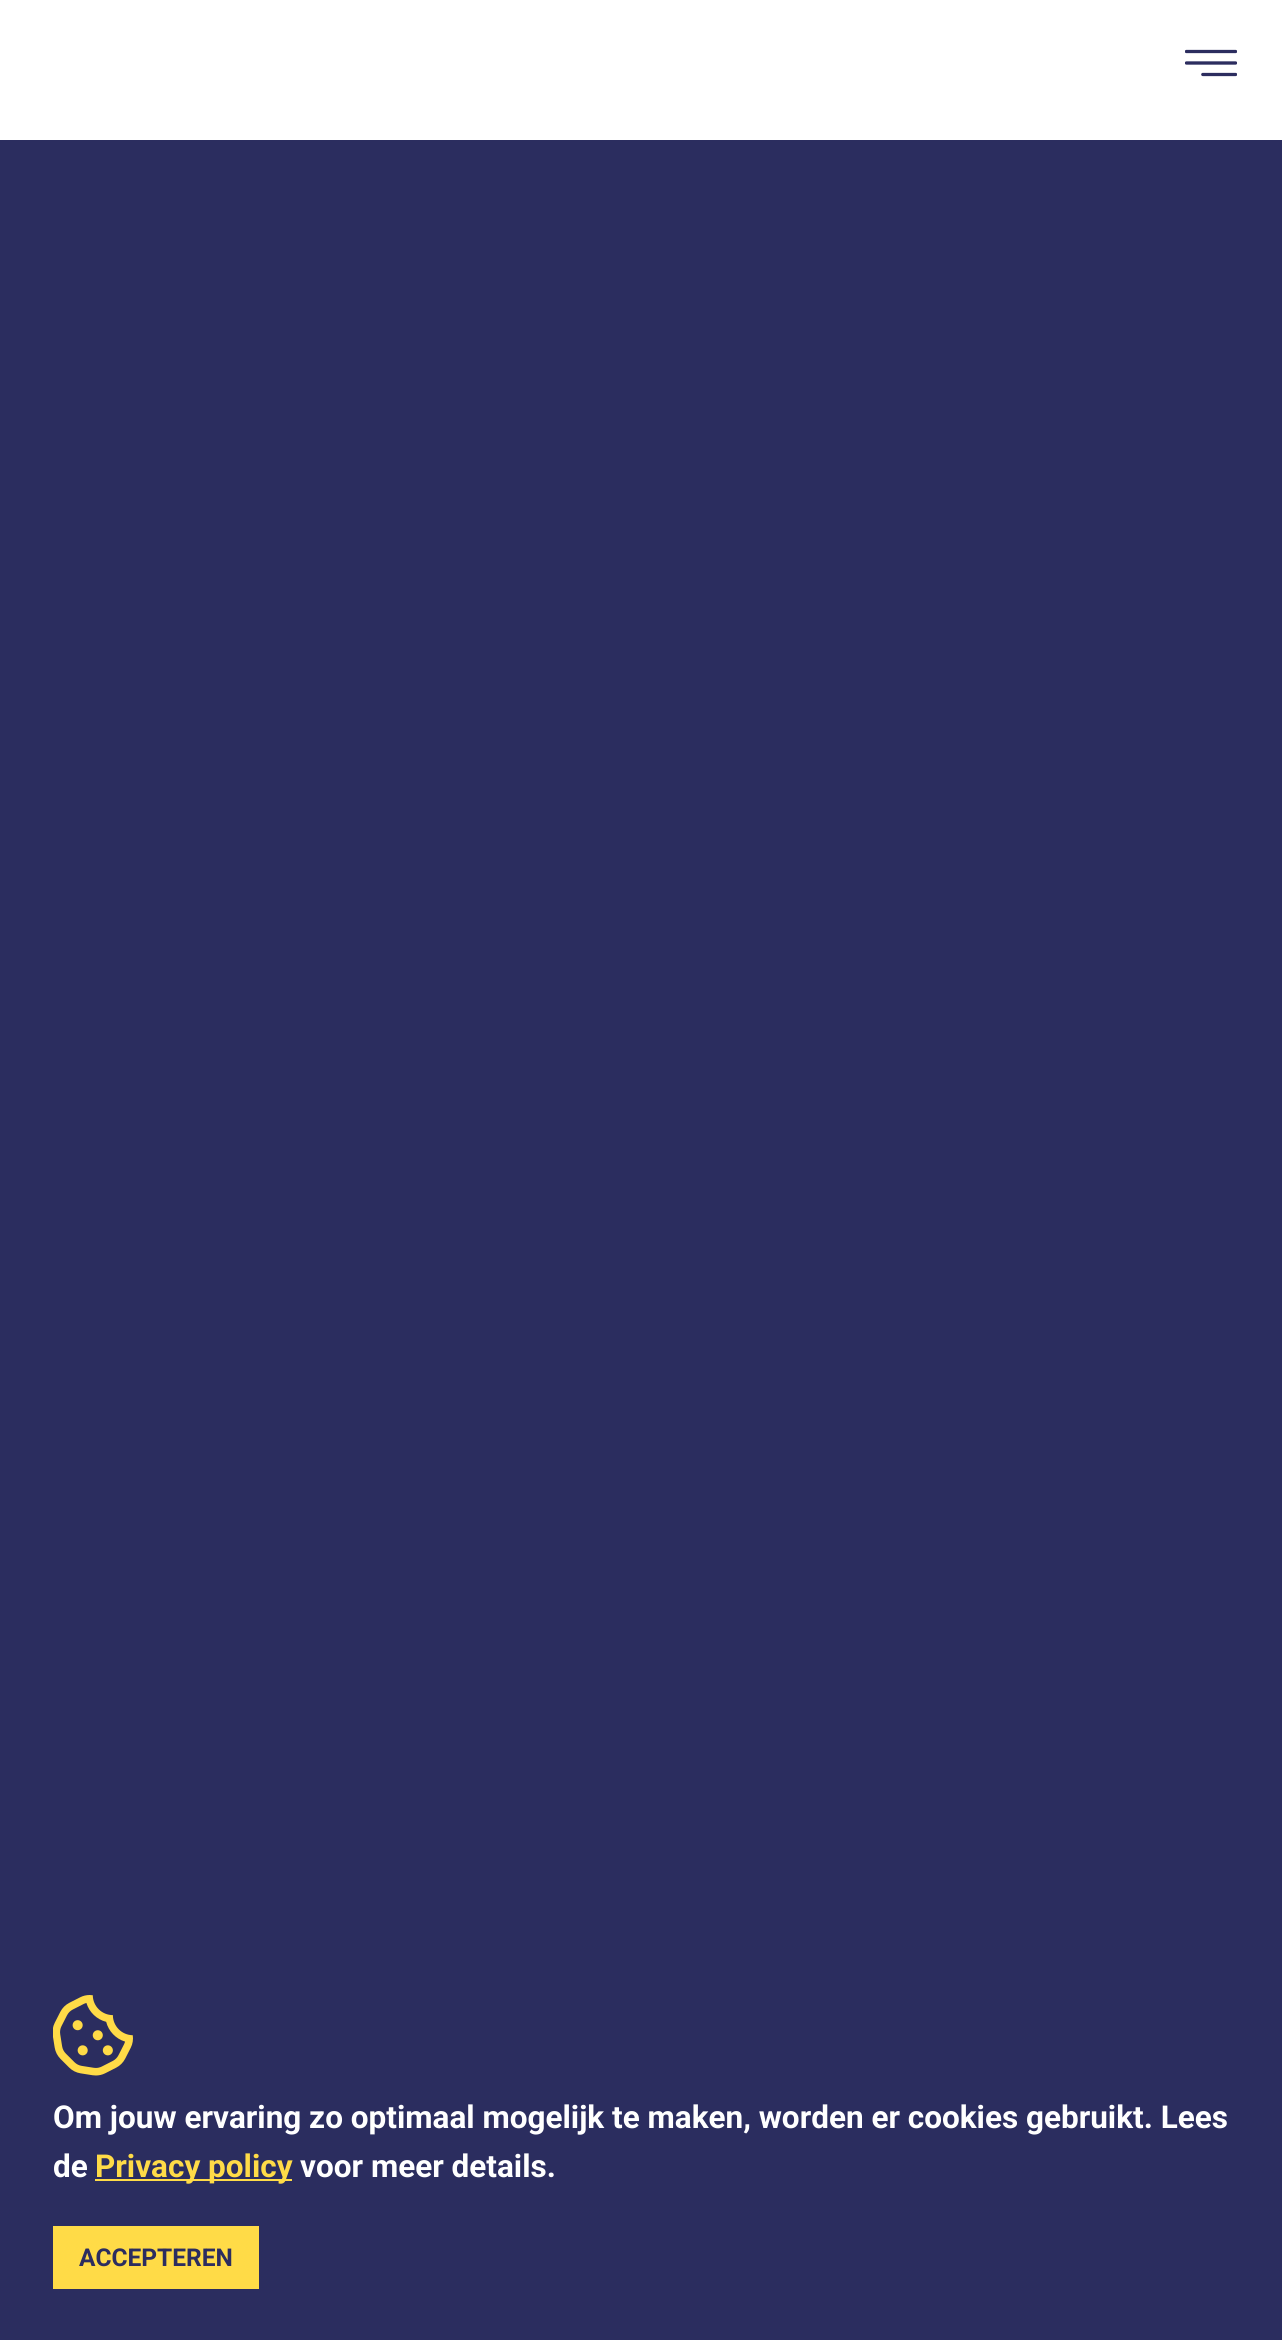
import math
import cairo



def draw_image(context, path, x, y, w, h):
    context.save()
    context.set_source_surface(cairo.ImageSurface.create_from_png(path), x, y)
    context.rectangle(x, y, w, h)
    context.fill()
    context.restore()


def draw(context):
    context.set_source_rgb(43 / 255, 45 / 255, 95 / 255)
    context.paint()
    context.set_source_rgb(1, 1, 1)
    context.rectangle(0, 0, 1282, 140)
    context.fill()
    draw_image(context, "images/1.png", 1185, 49, 52, 28)
    draw_image(context, "images/2.png", 53, 1995, 80, 81)
    context.set_source_rgb(1, 219 / 255, 71 / 255)
    context.rectangle(95, 2179, 197, 2)
    context.fill()
    context.rectangle(53, 2226, 206, 63)
    context.fill()
    context.select_font_face("Roboto", cairo.FontSlant.NORMAL, cairo.FontWeight.BOLD)
    context.set_font_size(31.5)
    context.set_source_rgb(1, 1, 1)
    context.move_to(53, 2128)
    context.show_text("Om jouw ervaring zo optimaal mogelijk te maken, worden er cookies gebruikt. Lees")
    context.move_to(53, 2177)
    context.show_text("de")
    context.set_source_rgb(1, 219 / 255, 71 / 255)
    context.move_to(95, 2177)
    context.show_text("Privacy policy")
    context.set_source_rgb(1, 1, 1)
    context.move_to(300, 2177)
    context.show_text("voor meer details.")
    context.set_font_size(24.5)
    context.set_source_rgb(44 / 255, 45 / 255, 95 / 255)
    context.move_to(79, 2266)
    context.show_text("ACCEPTEREN")


surface = cairo.ImageSurface(cairo.Format.RGB24, 1282, 2340)
context = cairo.Context(surface)
options = cairo.FontOptions()
options.set_hint_metrics(cairo.HintMetrics.OFF)
options.set_hint_style(cairo.HintStyle.NONE)
context.set_font_options(options)
context.set_miter_limit(4)
draw(context)
surface.write_to_png("out.png")
